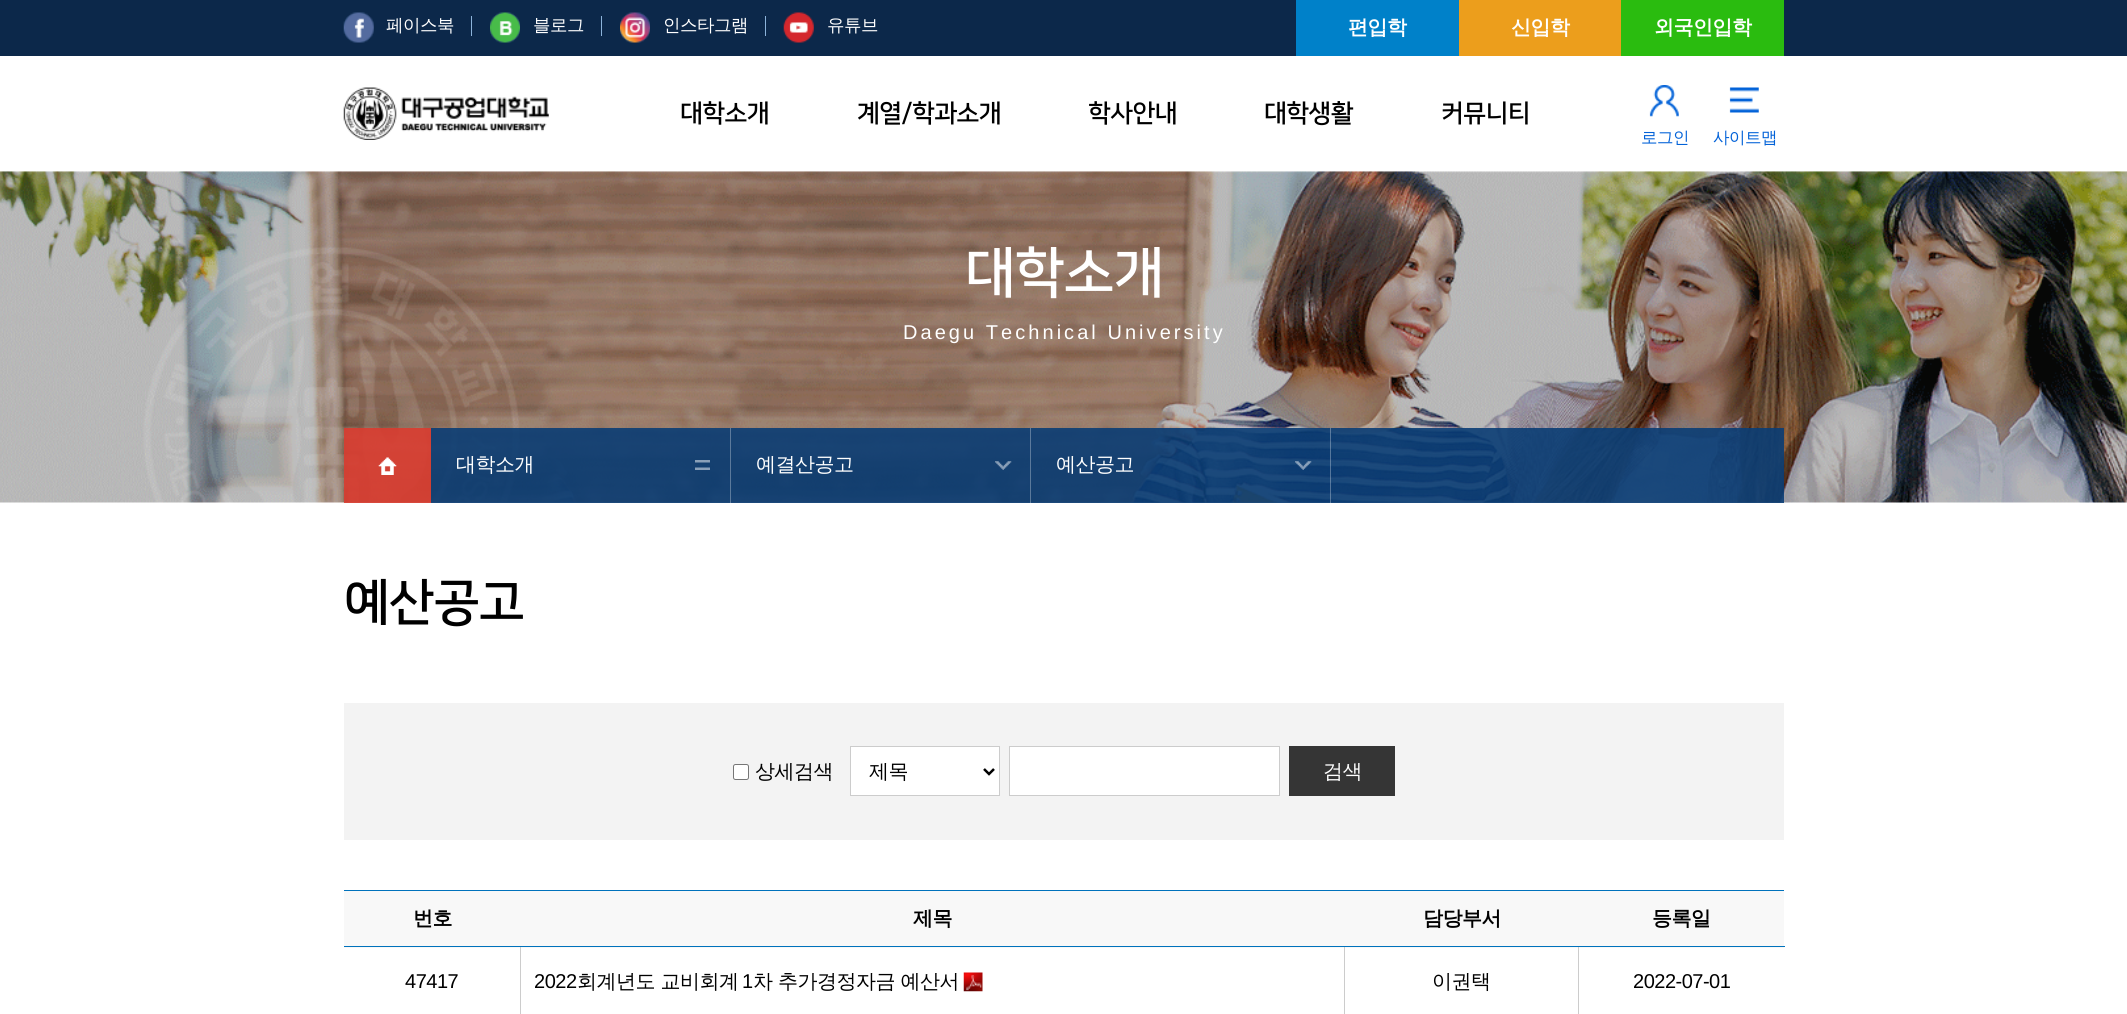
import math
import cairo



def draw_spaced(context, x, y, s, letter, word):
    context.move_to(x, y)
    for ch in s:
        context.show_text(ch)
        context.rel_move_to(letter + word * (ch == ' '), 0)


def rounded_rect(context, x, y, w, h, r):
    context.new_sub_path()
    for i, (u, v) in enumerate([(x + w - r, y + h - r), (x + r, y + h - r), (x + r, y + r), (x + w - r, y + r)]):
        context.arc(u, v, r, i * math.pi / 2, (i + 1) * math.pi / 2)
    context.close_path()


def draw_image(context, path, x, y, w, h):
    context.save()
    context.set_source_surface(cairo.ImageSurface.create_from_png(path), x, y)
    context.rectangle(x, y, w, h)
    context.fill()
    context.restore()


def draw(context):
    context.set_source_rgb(1, 1, 1)
    context.paint()
    context.set_source_rgb(12 / 255, 40 / 255, 74 / 255)
    context.rectangle(0, 0, 2127, 56)
    context.fill()
    draw_image(context, "images/1.png", 343, 12, 31, 31)
    context.set_source_rgb(140 / 255, 179 / 255, 218 / 255)
    context.rectangle(471, 16, 1, 20)
    context.fill()
    draw_image(context, "images/2.png", 490, 12, 30, 31)
    context.rectangle(601, 16, 1, 20)
    context.fill()
    draw_image(context, "images/3.png", 620, 12, 30, 31)
    context.rectangle(765, 16, 1, 20)
    context.fill()
    draw_image(context, "images/4.png", 783, 12, 31, 31)
    context.set_source_rgb(0, 129 / 255, 201 / 255)
    context.rectangle(1296, 0, 163, 56)
    context.fill()
    context.set_source_rgb(236 / 255, 158 / 255, 28 / 255)
    context.rectangle(1459, 0, 162, 56)
    context.fill()
    context.set_source_rgb(42 / 255, 188 / 255, 15 / 255)
    context.rectangle(1621, 0, 163, 56)
    context.fill()
    draw_image(context, "images/5.png", 343, 87, 206, 53)
    draw_image(context, "images/6.png", 1649, 85, 30, 32)
    draw_image(context, "images/7.png", 1729, 87, 30, 26)
    draw_image(context, "images/8.png", 0, 171, 2127, 332)
    context.set_source_rgba(218 / 255, 60 / 255, 48 / 255, 0.9)
    context.rectangle(344, 428, 87, 75)
    context.fill()
    draw_image(context, "images/9.png", 378, 457, 19, 18)
    context.set_source_rgba(11 / 255, 61 / 255, 117 / 255, 0.9)
    context.rectangle(431, 428, 1353, 75)
    context.fill()
    context.set_source_rgba(1, 1, 1, 0.3)
    context.rectangle(730, 428, 1, 75)
    context.fill()
    draw_image(context, "images/10.png", 695, 460, 15, 10)
    context.rectangle(1030, 428, 1, 75)
    context.fill()
    draw_image(context, "images/11.png", 995, 461, 17, 9)
    context.rectangle(1330, 428, 1, 75)
    context.fill()
    draw_image(context, "images/12.png", 1295, 461, 17, 9)
    context.set_source_rgb(243 / 255, 243 / 255, 243 / 255)
    context.rectangle(344, 703, 1440, 137)
    context.fill()
    context.set_source_rgb(1, 1, 1)
    rounded_rect(context, 733.5, 764.5, 15, 15, 2)
    context.fill_preserve()
    context.set_source_rgb(118 / 255, 118 / 255, 118 / 255)
    context.set_line_width(1)
    context.stroke()
    context.set_source_rgb(1, 1, 1)
    context.rectangle(850.5, 746.5, 149, 49)
    context.fill_preserve()
    context.set_source_rgb(204 / 255, 204 / 255, 204 / 255)
    context.stroke()
    context.new_path()
    context.move_to(984, 769)
    context.line_to(989, 774)
    context.line_to(994, 769)
    context.set_source_rgb(0, 0, 0)
    context.set_line_width(2.5)
    context.stroke()
    context.set_source_rgb(1, 1, 1)
    context.rectangle(1009.5, 746.5, 270, 49)
    context.fill_preserve()
    context.set_source_rgb(204 / 255, 204 / 255, 204 / 255)
    context.set_line_width(1)
    context.stroke()
    context.set_source_rgb(53 / 255, 53 / 255, 53 / 255)
    context.rectangle(1289, 746, 106, 50)
    context.fill()
    context.set_source_rgb(0, 114 / 255, 188 / 255)
    context.rectangle(344, 890, 1440, 1)
    context.fill()
    context.set_source_rgb(248 / 255, 248 / 255, 248 / 255)
    context.rectangle(344, 891, 1440, 57)
    context.fill()
    context.set_source_rgb(204 / 255, 204 / 255, 204 / 255)
    context.rectangle(520, 946, 1, 68)
    context.fill()
    context.rectangle(1344, 946, 1, 68)
    context.fill()
    context.rectangle(1578, 946, 1, 68)
    context.fill()
    context.set_source_rgb(0, 114 / 255, 188 / 255)
    context.rectangle(344, 946, 1441, 1)
    context.fill()
    draw_image(context, "images/13.png", 963, 972, 20, 20)
    context.select_font_face("WenQuanYi Zen Hei Medium")
    context.set_font_size(17.5)
    context.set_source_rgb(1, 1, 1)
    draw_spaced(context, 386, 31, "페이스북", -0.5, 0)
    draw_spaced(context, 533, 31, "블로그", -0.5, 0)
    draw_spaced(context, 663, 31, "인스타그램", -0.5, 0)
    draw_spaced(context, 827, 31, "유튜브", -0.5, 0)
    context.select_font_face("WenQuanYi Zen Hei", cairo.FontSlant.NORMAL, cairo.FontWeight.BOLD)
    context.set_font_size(20)
    draw_spaced(context, 1348, 34, "편입학", -0.5, 0)
    draw_spaced(context, 1511, 34, "신입학", -0.5, 0)
    draw_spaced(context, 1654, 34, "외국인입학", -0.5, 0)
    context.select_font_face("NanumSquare", cairo.FontSlant.NORMAL, cairo.FontWeight.BOLD)
    context.set_font_size(25)
    context.set_source_rgb(0, 0, 0)
    draw_spaced(context, 680, 121, "대학소개", -0.5, 0)
    draw_spaced(context, 857, 121, "계열/학과소개", -0.5, 0)
    draw_spaced(context, 1088, 121, "학사안내", -0.5, 0)
    draw_spaced(context, 1264, 121, "대학생활", -0.5, 0)
    draw_spaced(context, 1441, 121, "커뮤니티", -0.5, 0)
    context.select_font_face("WenQuanYi Zen Hei Medium")
    context.set_font_size(16.5)
    context.set_source_rgb(2 / 255, 98 / 255, 216 / 255)
    draw_spaced(context, 1641, 143, "로그인", -0.5, 0)
    draw_spaced(context, 1713, 143, "사이트맵", -0.5, 0)
    context.select_font_face("NanumSquare", cairo.FontSlant.NORMAL, cairo.FontWeight.BOLD)
    context.set_font_size(55)
    context.set_source_rgb(1, 1, 1)
    draw_spaced(context, 965, 290, "대학소개", -0.5, 0)
    context.select_font_face("Liberation Sans")
    context.set_font_size(20)
    draw_spaced(context, 903, 339, "Daegu Technical University", 3.05, 0)
    context.select_font_face("WenQuanYi Zen Hei Medium")
    draw_spaced(context, 456, 471, "대학소개", -0.5, 0)
    draw_spaced(context, 756, 471, "예결산공고", -0.5, 0)
    draw_spaced(context, 1056, 471, "예산공고", -0.5, 0)
    context.select_font_face("NanumSquare", cairo.FontSlant.NORMAL, cairo.FontWeight.BOLD)
    context.set_font_size(50)
    context.set_source_rgb(0, 0, 0)
    draw_spaced(context, 344, 618, "예산공고", -0.5, 0)
    context.select_font_face("WenQuanYi Zen Hei Medium")
    context.set_font_size(20)
    draw_spaced(context, 755, 778, "상세검색", -0.5, 0)
    draw_spaced(context, 869, 778, "제목", -0.5, 0)
    context.set_source_rgb(1, 1, 1)
    draw_spaced(context, 1323, 778, "검색", -0.5, 0)
    context.select_font_face("WenQuanYi Zen Hei", cairo.FontSlant.NORMAL, cairo.FontWeight.BOLD)
    context.set_source_rgb(0, 0, 0)
    draw_spaced(context, 413, 925, "번호", -0.5, 0)
    draw_spaced(context, 913, 925, "제목", -0.5, 0)
    draw_spaced(context, 1423, 925, "담당부서", -0.5, 0)
    draw_spaced(context, 1652, 925, "등록일", -0.5, 0)
    context.select_font_face("Liberation Sans")
    draw_spaced(context, 405, 988, "47417", -0.5, 0)
    draw_spaced(context, 534, 988, "2022", -0.5, 0)
    context.select_font_face("WenQuanYi Zen Hei Medium")
    draw_spaced(context, 577, 988, "회계년도 교비회계", -0.5, 0)
    context.select_font_face("Liberation Sans")
    draw_spaced(context, 742, 988, "1", -0.5, 0)
    context.select_font_face("WenQuanYi Zen Hei Medium")
    draw_spaced(context, 753, 988, "차 추가경정자금 예산서", -0.5, 0)
    draw_spaced(context, 1432, 988, "이권택", -0.5, 0)
    context.select_font_face("Liberation Sans")
    draw_spaced(context, 1633, 988, "2022-07-01", -0.5, 0)


surface = cairo.ImageSurface(cairo.Format.RGB24, 2127, 1014)
context = cairo.Context(surface)
options = cairo.FontOptions()
options.set_hint_metrics(cairo.HintMetrics.OFF)
options.set_hint_style(cairo.HintStyle.NONE)
context.set_font_options(options)
context.set_miter_limit(4)
draw(context)
surface.write_to_png("out.png")
